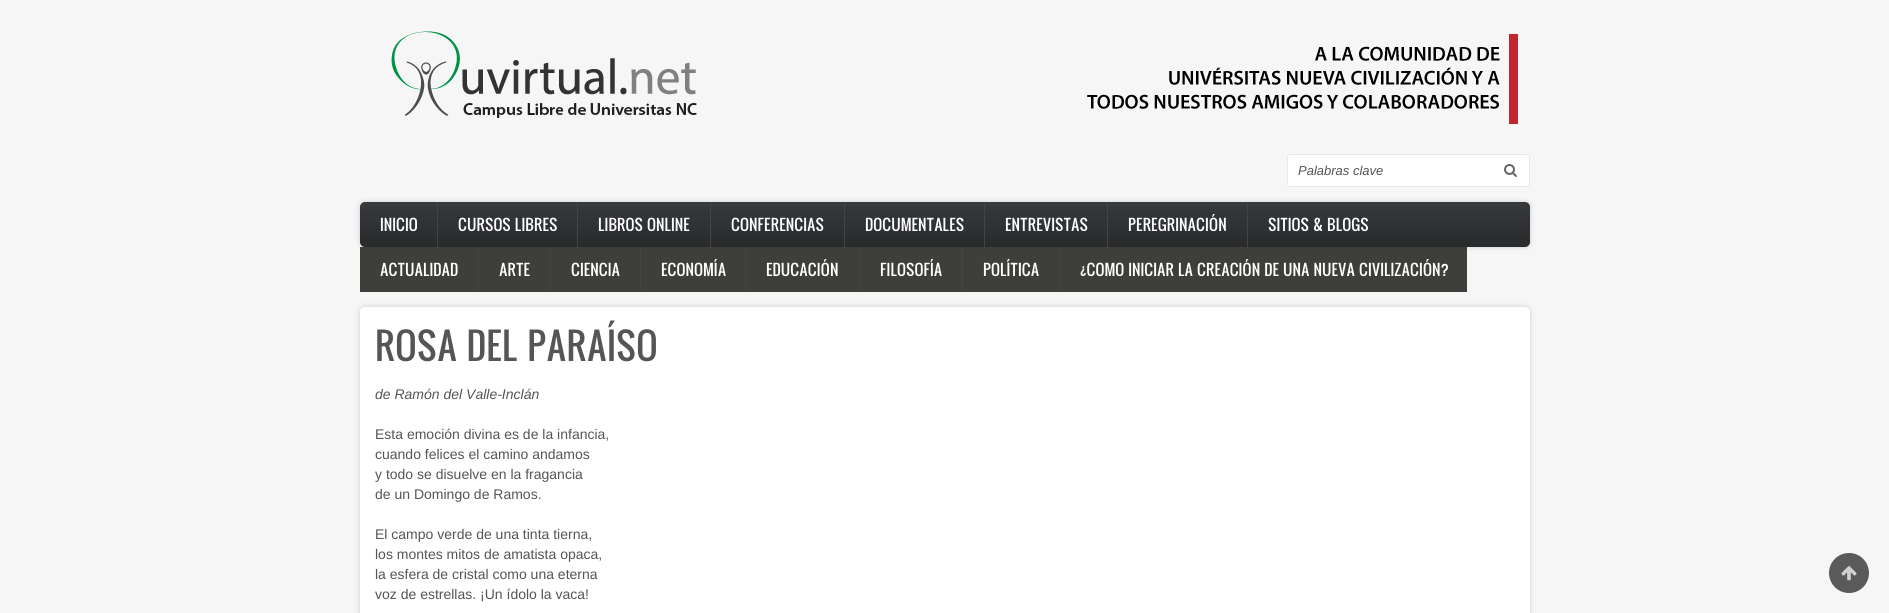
import math
import cairo



def rounded_rect(context, x, y, w, h, r):
    context.new_sub_path()
    for i, (u, v) in enumerate([(x + w - r, y + h - r), (x + r, y + h - r), (x + r, y + r), (x + w - r, y + r)]):
        context.arc(u, v, r, i * math.pi / 2, (i + 1) * math.pi / 2)
    context.close_path()


def draw_shadow(context, x, y, w, h, r, blur, alpha):
    context.push_group_with_content(cairo.Content.ALPHA)
    context.set_operator(cairo.Operator.SOURCE)
    for i in range(15, -16, -2):
        e = blur * i / 6
        if min(w, h) + 2 * e > 0:
            context.set_source_rgba(0, 0, 0, alpha * math.erfc((i - 1) / 8.5) / 2)
            rounded_rect(context, x - e, y - e, w + 2 * e, h + 2 * e, max(0, min(r + e + blur * .6, min(w, h) / 2 + e)))
            context.fill()
    context.mask(context.pop_group())


def draw_image(context, path, x, y, w, h):
    context.save()
    context.set_source_surface(cairo.ImageSurface.create_from_png(path), x, y)
    context.rectangle(x, y, w, h)
    context.fill()
    context.restore()


def draw(context):
    context.set_source_rgb(246 / 255, 246 / 255, 246 / 255)
    context.paint()
    draw_image(context, "images/1.png", 391, 31, 306, 87)
    draw_image(context, "images/2.png", 1087, 34, 431, 90)
    context.set_source_rgb(1, 1, 1)
    rounded_rect(context, 1287.5, 154.5, 242, 32, 2.5)
    context.fill_preserve()
    context.set_source_rgb(231 / 255, 232 / 255, 233 / 255)
    context.set_line_width(1)
    context.stroke()
    draw_image(context, "images/3.png", 1504, 164, 13, 13)
    context.set_source_rgb(204 / 255, 204 / 255, 204 / 255)
    draw_shadow(context, 360, 202, 1170, 45, 5, 2.5, 1)
    gradient = cairo.LinearGradient(945, 202, 945, 247)
    gradient.add_color_stop_rgba(0, 55 / 255, 58 / 255, 61 / 255, 1)
    gradient.add_color_stop_rgba(1, 40 / 255, 42 / 255, 44 / 255, 1)
    context.set_source(gradient)
    rounded_rect(context, 360, 202, 1170, 45, 5)
    context.fill()
    context.set_source_rgb(68 / 255, 68 / 255, 68 / 255)
    context.rectangle(437, 202, 1, 45)
    context.fill()
    context.rectangle(577, 202, 1, 45)
    context.fill()
    context.rectangle(710, 202, 1, 45)
    context.fill()
    context.rectangle(844, 202, 1, 45)
    context.fill()
    context.rectangle(984, 202, 1, 45)
    context.fill()
    context.rectangle(1107, 202, 1, 45)
    context.fill()
    context.rectangle(1247, 202, 1, 45)
    context.fill()
    context.set_source_rgb(62 / 255, 63 / 255, 58 / 255)
    context.rectangle(360, 247, 118, 45)
    context.fill()
    context.rectangle(479, 247, 71, 45)
    context.fill()
    context.set_source_rgb(68 / 255, 68 / 255, 68 / 255)
    context.rectangle(478, 247, 1, 45)
    context.fill()
    context.set_source_rgb(62 / 255, 63 / 255, 58 / 255)
    context.rectangle(551, 247, 89, 45)
    context.fill()
    context.set_source_rgb(68 / 255, 68 / 255, 68 / 255)
    context.rectangle(550, 247, 1, 45)
    context.fill()
    context.set_source_rgb(62 / 255, 63 / 255, 58 / 255)
    context.rectangle(641, 247, 104, 45)
    context.fill()
    context.set_source_rgb(68 / 255, 68 / 255, 68 / 255)
    context.rectangle(640, 247, 1, 45)
    context.fill()
    context.set_source_rgb(62 / 255, 63 / 255, 58 / 255)
    context.rectangle(746, 247, 113, 45)
    context.fill()
    context.set_source_rgb(68 / 255, 68 / 255, 68 / 255)
    context.rectangle(745, 247, 1, 45)
    context.fill()
    context.set_source_rgb(62 / 255, 63 / 255, 58 / 255)
    context.rectangle(860, 247, 102, 45)
    context.fill()
    context.set_source_rgb(68 / 255, 68 / 255, 68 / 255)
    context.rectangle(859, 247, 1, 45)
    context.fill()
    context.set_source_rgb(62 / 255, 63 / 255, 58 / 255)
    context.rectangle(963, 247, 96, 45)
    context.fill()
    context.set_source_rgb(68 / 255, 68 / 255, 68 / 255)
    context.rectangle(962, 247, 1, 45)
    context.fill()
    context.set_source_rgb(62 / 255, 63 / 255, 58 / 255)
    context.rectangle(1060, 247, 407, 45)
    context.fill()
    context.set_source_rgb(68 / 255, 68 / 255, 68 / 255)
    context.rectangle(1059, 247, 1, 45)
    context.fill()
    context.set_source_rgb(204 / 255, 204 / 255, 204 / 255)
    draw_shadow(context, 360, 307, 1170, 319, 5, 2.5, 1)
    context.set_source_rgb(1, 1, 1)
    rounded_rect(context, 360, 307, 1170, 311, 5)
    context.fill()
    context.set_source_rgb(90 / 255, 90 / 255, 90 / 255)
    context.arc(1849, 573, 20, 0, 2 * math.pi)
    context.fill()
    draw_image(context, "images/4.png", 1841, 566, 16, 15)
    context.select_font_face("Liberation Sans", cairo.FontSlant.ITALIC)
    context.set_font_size(13)
    context.set_source_rgb(85 / 255, 85 / 255, 85 / 255)
    context.move_to(1298, 175)
    context.show_text("Palabras clave")
    context.select_font_face("Oswald")
    context.set_font_size(15.1)
    context.set_source_rgb(1, 1, 1)
    context.move_to(380, 231)
    context.show_text("INICIO")
    context.move_to(458, 231)
    context.show_text("CURSOS LIBRES")
    context.move_to(598, 231)
    context.show_text("LIBROS ONLINE")
    context.move_to(731, 231)
    context.show_text("CONFERENCIAS")
    context.move_to(865, 231)
    context.show_text("DOCUMENTALES")
    context.move_to(1005, 231)
    context.show_text("ENTREVISTAS")
    context.move_to(1128, 231)
    context.show_text("PEREGRINACIÓN")
    context.move_to(1268, 231)
    context.show_text("SITIOS & BLOGS")
    context.move_to(380, 276)
    context.show_text("ACTUALIDAD")
    context.move_to(499, 276)
    context.show_text("ARTE")
    context.move_to(571, 276)
    context.show_text("CIENCIA")
    context.move_to(661, 276)
    context.show_text("ECONOMÍA")
    context.move_to(766, 276)
    context.show_text("EDUCACIÓN")
    context.move_to(880, 276)
    context.show_text("FILOSOFÍA")
    context.move_to(983, 276)
    context.show_text("POLÍTICA")
    context.move_to(1080, 276)
    context.show_text("¿COMO INICIAR LA CREACIÓN DE UNA NUEVA CIVILIZACIÓN?")
    context.set_font_size(36)
    context.set_source_rgb(85 / 255, 85 / 255, 85 / 255)
    context.move_to(375, 361)
    context.show_text("ROSA DEL PARAÍSO")
    context.select_font_face("Liberation Sans", cairo.FontSlant.ITALIC)
    context.set_font_size(14)
    context.move_to(375, 399)
    context.show_text("de Ramón del Valle-Inclán")
    context.select_font_face("Liberation Sans")
    context.move_to(375, 439)
    context.show_text("Esta emoción divina es de la infancia,")
    context.move_to(375, 459)
    context.show_text("cuando felices el camino andamos")
    context.move_to(375, 479)
    context.show_text("y todo se disuelve en la fragancia")
    context.move_to(375, 499)
    context.show_text("de un Domingo de Ramos.")
    context.move_to(375, 539)
    context.show_text("El campo verde de una tinta tierna,")
    context.move_to(375, 559)
    context.show_text("los montes mitos de amatista opaca,")
    context.move_to(375, 579)
    context.show_text("la esfera de cristal como una eterna")
    context.move_to(375, 599)
    context.show_text("voz de estrellas. ¡Un ídolo la vaca!")


surface = cairo.ImageSurface(cairo.Format.RGB24, 1889, 613)
context = cairo.Context(surface)
options = cairo.FontOptions()
options.set_hint_metrics(cairo.HintMetrics.OFF)
options.set_hint_style(cairo.HintStyle.NONE)
context.set_font_options(options)
context.set_miter_limit(4)
draw(context)
surface.write_to_png("out.png")
